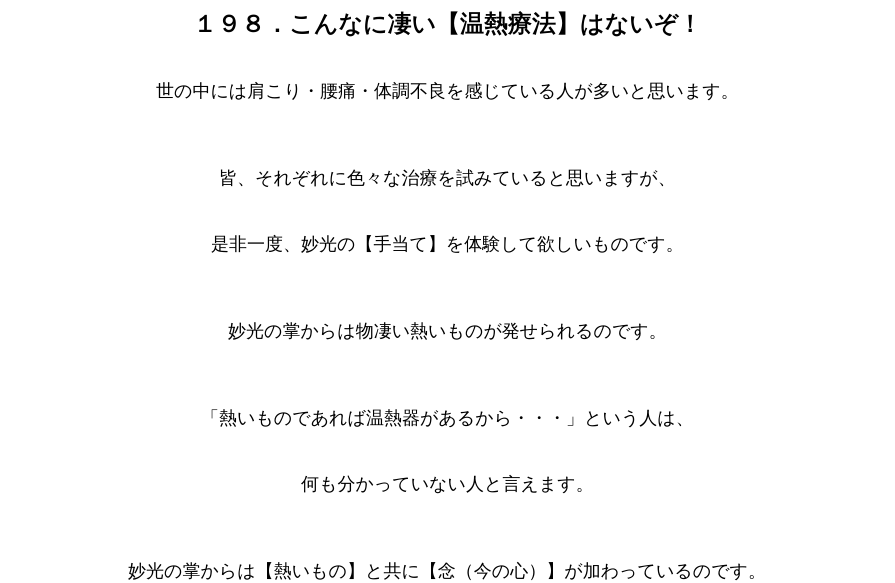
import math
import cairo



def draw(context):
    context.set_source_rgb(1, 1, 1)
    context.paint()
    context.select_font_face("WenQuanYi Zen Hei", cairo.FontSlant.NORMAL, cairo.FontWeight.BOLD)
    context.set_font_size(24)
    context.set_source_rgb(0, 0, 0)
    context.move_to(193, 32)
    context.show_text("１９８．こんなに凄い【温熱療法】はないぞ！")
    context.select_font_face("WenQuanYi Zen Hei Medium")
    context.set_font_size(18)
    context.move_to(156, 97)
    context.show_text("世の中には肩こり・腰痛・体調不良を感じている人が多いと思います。")
    context.move_to(219, 184)
    context.show_text("皆、それぞれに色々な治療を試みていると思いますが、")
    context.move_to(211, 250)
    context.show_text("是非一度、妙光の【手当て】を体験して欲しいものです。")
    context.move_to(228, 337)
    context.show_text("妙光の掌からは物凄い熱いものが発せられるのです。")
    context.move_to(201, 424)
    context.show_text("「熱いものであれば温熱器があるから・・・」という人は、")
    context.move_to(301, 490)
    context.show_text("何も分かっていない人と言えます。")
    context.move_to(128, 577)
    context.show_text("妙光の掌からは【熱いもの】と共に【念（今の心）】が加わっているのです。")


surface = cairo.ImageSurface(cairo.Format.RGB24, 895, 583)
context = cairo.Context(surface)
options = cairo.FontOptions()
options.set_hint_metrics(cairo.HintMetrics.OFF)
options.set_hint_style(cairo.HintStyle.NONE)
context.set_font_options(options)
context.set_miter_limit(4)
draw(context)
surface.write_to_png("out.png")
